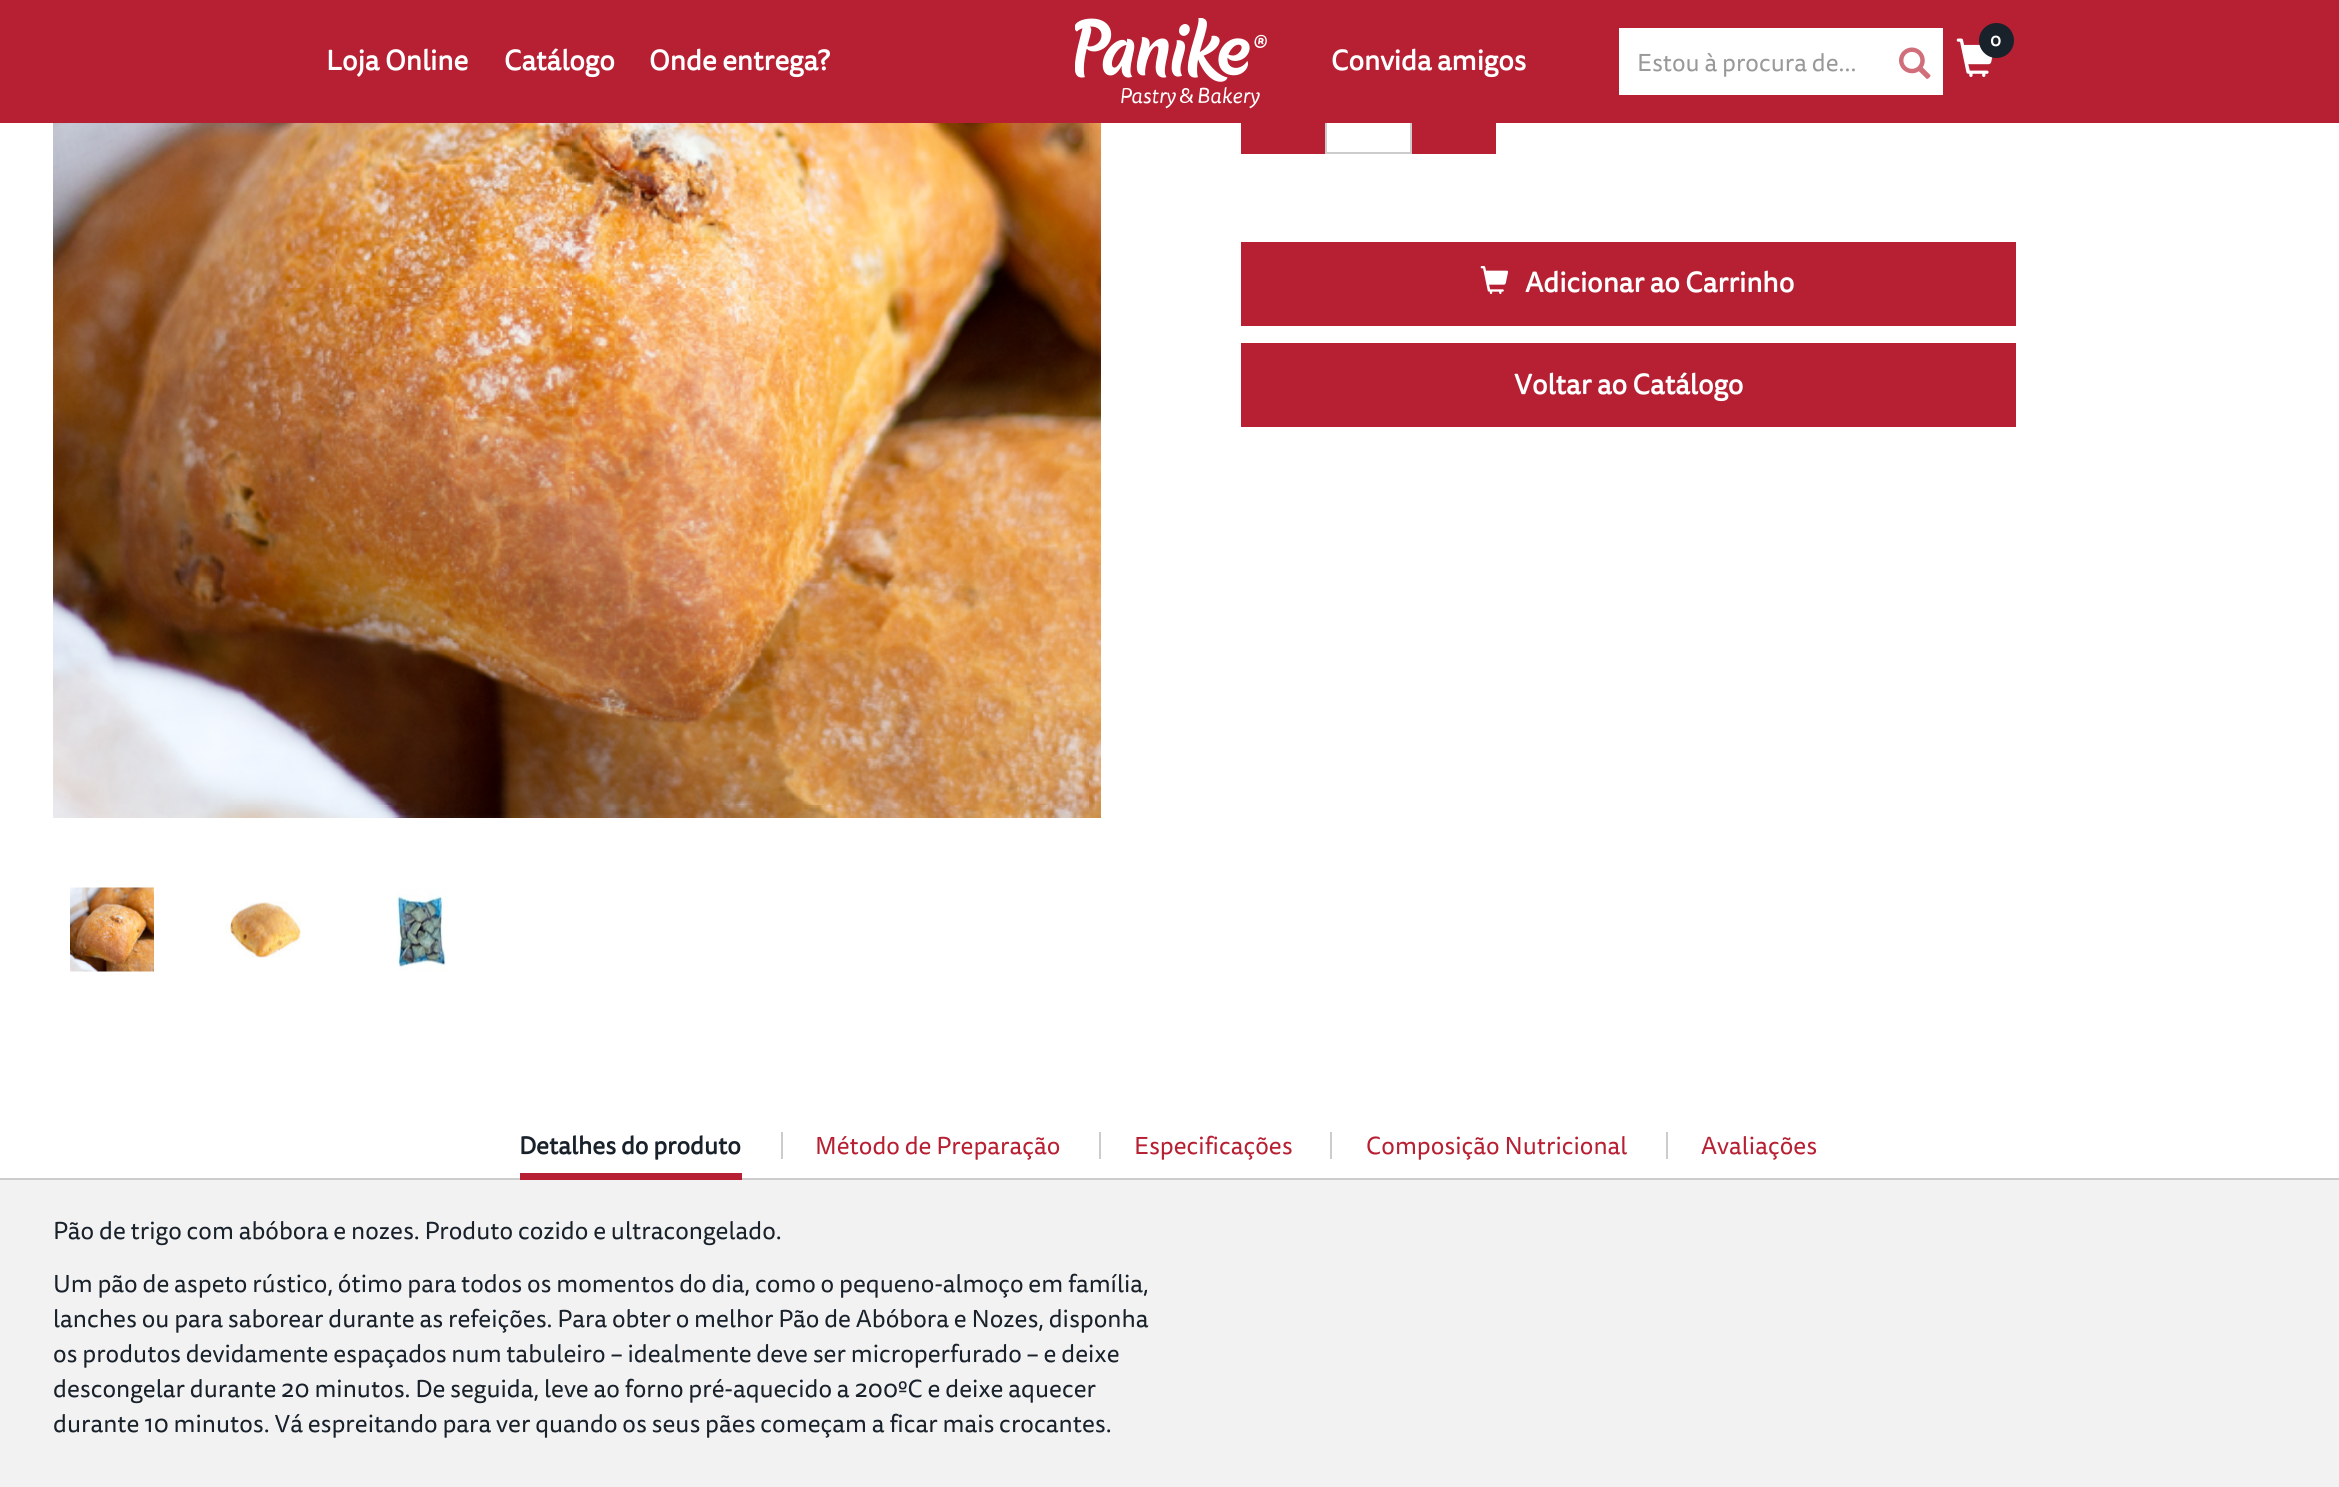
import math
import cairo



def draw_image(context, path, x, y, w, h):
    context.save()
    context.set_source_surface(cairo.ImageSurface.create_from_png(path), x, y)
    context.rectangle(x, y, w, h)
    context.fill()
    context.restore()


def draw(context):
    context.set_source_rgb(1, 1, 1)
    context.paint()
    context.rectangle(1326, 71, 85, 82)
    context.set_source_rgb(204 / 255, 204 / 255, 204 / 255)
    context.stroke()
    context.set_source_rgb(183 / 255, 32 / 255, 51 / 255)
    context.rectangle(0, 0, 2339, 123)
    context.fill()
    draw_image(context, "images/1.png", 1075, 18, 192, 91)
    draw_image(context, "images/2.png", 1956, 38, 37, 39)
    context.set_source_rgb(25 / 255, 33 / 255, 43 / 255)
    context.arc(1996.5, 40.5, 17.5, 0, 2 * math.pi)
    context.fill()
    context.set_source_rgb(1, 1, 1)
    context.rectangle(1619, 28, 324, 67)
    context.fill()
    draw_image(context, "images/3.png", 1899, 47, 32, 32)
    draw_image(context, "images/4.png", 53, 123, 1048, 695)
    draw_image(context, "images/5.png", 70, 887, 84, 85)
    draw_image(context, "images/6.png", 225, 901, 76, 57)
    draw_image(context, "images/7.png", 396, 888, 52, 83)
    context.set_source_rgb(183 / 255, 32 / 255, 51 / 255)
    context.rectangle(1241, 123, 84, 31)
    context.fill()
    context.rectangle(1412, 123, 84, 31)
    context.fill()
    context.rectangle(1241, 242, 775, 84)
    context.fill()
    draw_image(context, "images/8.png", 1480, 266, 29, 28)
    context.rectangle(1241, 343, 775, 84)
    context.fill()
    context.set_source_rgb(204 / 255, 204 / 255, 204 / 255)
    context.rectangle(0, 1178, 2339, 2)
    context.fill()
    context.set_source_rgb(183 / 255, 32 / 255, 51 / 255)
    context.rectangle(520, 1173, 222, 7)
    context.fill()
    context.set_source_rgb(204 / 255, 204 / 255, 204 / 255)
    context.rectangle(781, 1132, 2, 27)
    context.fill()
    context.rectangle(1099, 1132, 2, 27)
    context.fill()
    context.rectangle(1330, 1132, 2, 27)
    context.fill()
    context.rectangle(1666, 1132, 2, 27)
    context.fill()
    context.set_source_rgb(242 / 255, 242 / 255, 242 / 255)
    context.rectangle(0, 1180, 2339, 307)
    context.fill()
    context.select_font_face("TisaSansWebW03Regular", cairo.FontSlant.NORMAL, cairo.FontWeight.BOLD)
    context.set_font_size(28)
    context.set_source_rgb(1, 1, 1)
    context.move_to(326, 70)
    context.show_text("Loja Online")
    context.move_to(504, 70)
    context.show_text("Catálogo")
    context.move_to(649, 70)
    context.show_text("Onde entrega?")
    context.move_to(1331, 70)
    context.show_text("Convida amigos")
    context.set_font_size(18)
    context.move_to(1990, 46)
    context.show_text("0")
    context.select_font_face("TisaSansWebW03Regular")
    context.set_font_size(24.5)
    context.set_source_rgb(153 / 255, 153 / 255, 153 / 255)
    context.move_to(1637, 71)
    context.show_text("Estou à procura de...")
    context.select_font_face("TisaSansWebW03Regular", cairo.FontSlant.NORMAL, cairo.FontWeight.BOLD)
    context.set_font_size(28)
    context.set_source_rgb(1, 1, 1)
    context.move_to(1525, 292)
    context.show_text("Adicionar ao Carrinho")
    context.move_to(1514, 394)
    context.show_text("Voltar ao Catálogo")
    context.set_font_size(24.5)
    context.set_source_rgb(25 / 255, 33 / 255, 43 / 255)
    context.move_to(519, 1154)
    context.show_text("Detalhes do produto")
    context.select_font_face("TisaSansWebW03Regular")
    context.set_source_rgb(183 / 255, 32 / 255, 51 / 255)
    context.move_to(815, 1154)
    context.show_text("Método de Preparação")
    context.move_to(1134, 1154)
    context.show_text("Especificações")
    context.move_to(1366, 1154)
    context.show_text("Composição Nutricional")
    context.move_to(1701, 1154)
    context.show_text("Avaliações")
    context.set_source_rgb(25 / 255, 33 / 255, 43 / 255)
    context.move_to(53, 1239)
    context.show_text("Pão de trigo com abóbora e nozes. Produto cozido e ultracongelado.")
    context.move_to(53, 1292)
    context.show_text("Um pão de aspeto rústico, ótimo para todos os momentos do dia, como o pequeno-almoço em família,")
    context.move_to(53, 1327)
    context.show_text("lanches ou para saborear durante as refeições. Para obter o melhor Pão de Abóbora e Nozes, disponha")
    context.move_to(53, 1362)
    context.show_text("os produtos devidamente espaçados num tabuleiro – idealmente deve ser microperfurado – e deixe")
    context.move_to(53, 1397)
    context.show_text("descongelar durante 20 minutos. De seguida, leve ao forno pré-aquecido a 200ºC e deixe aquecer")
    context.move_to(53, 1432)
    context.show_text("durante 10 minutos. Vá espreitando para ver quando os seus pães começam a ficar mais crocantes.")


surface = cairo.ImageSurface(cairo.Format.RGB24, 2339, 1487)
context = cairo.Context(surface)
options = cairo.FontOptions()
options.set_hint_metrics(cairo.HintMetrics.OFF)
options.set_hint_style(cairo.HintStyle.NONE)
context.set_font_options(options)
context.set_miter_limit(4)
draw(context)
surface.write_to_png("out.png")
